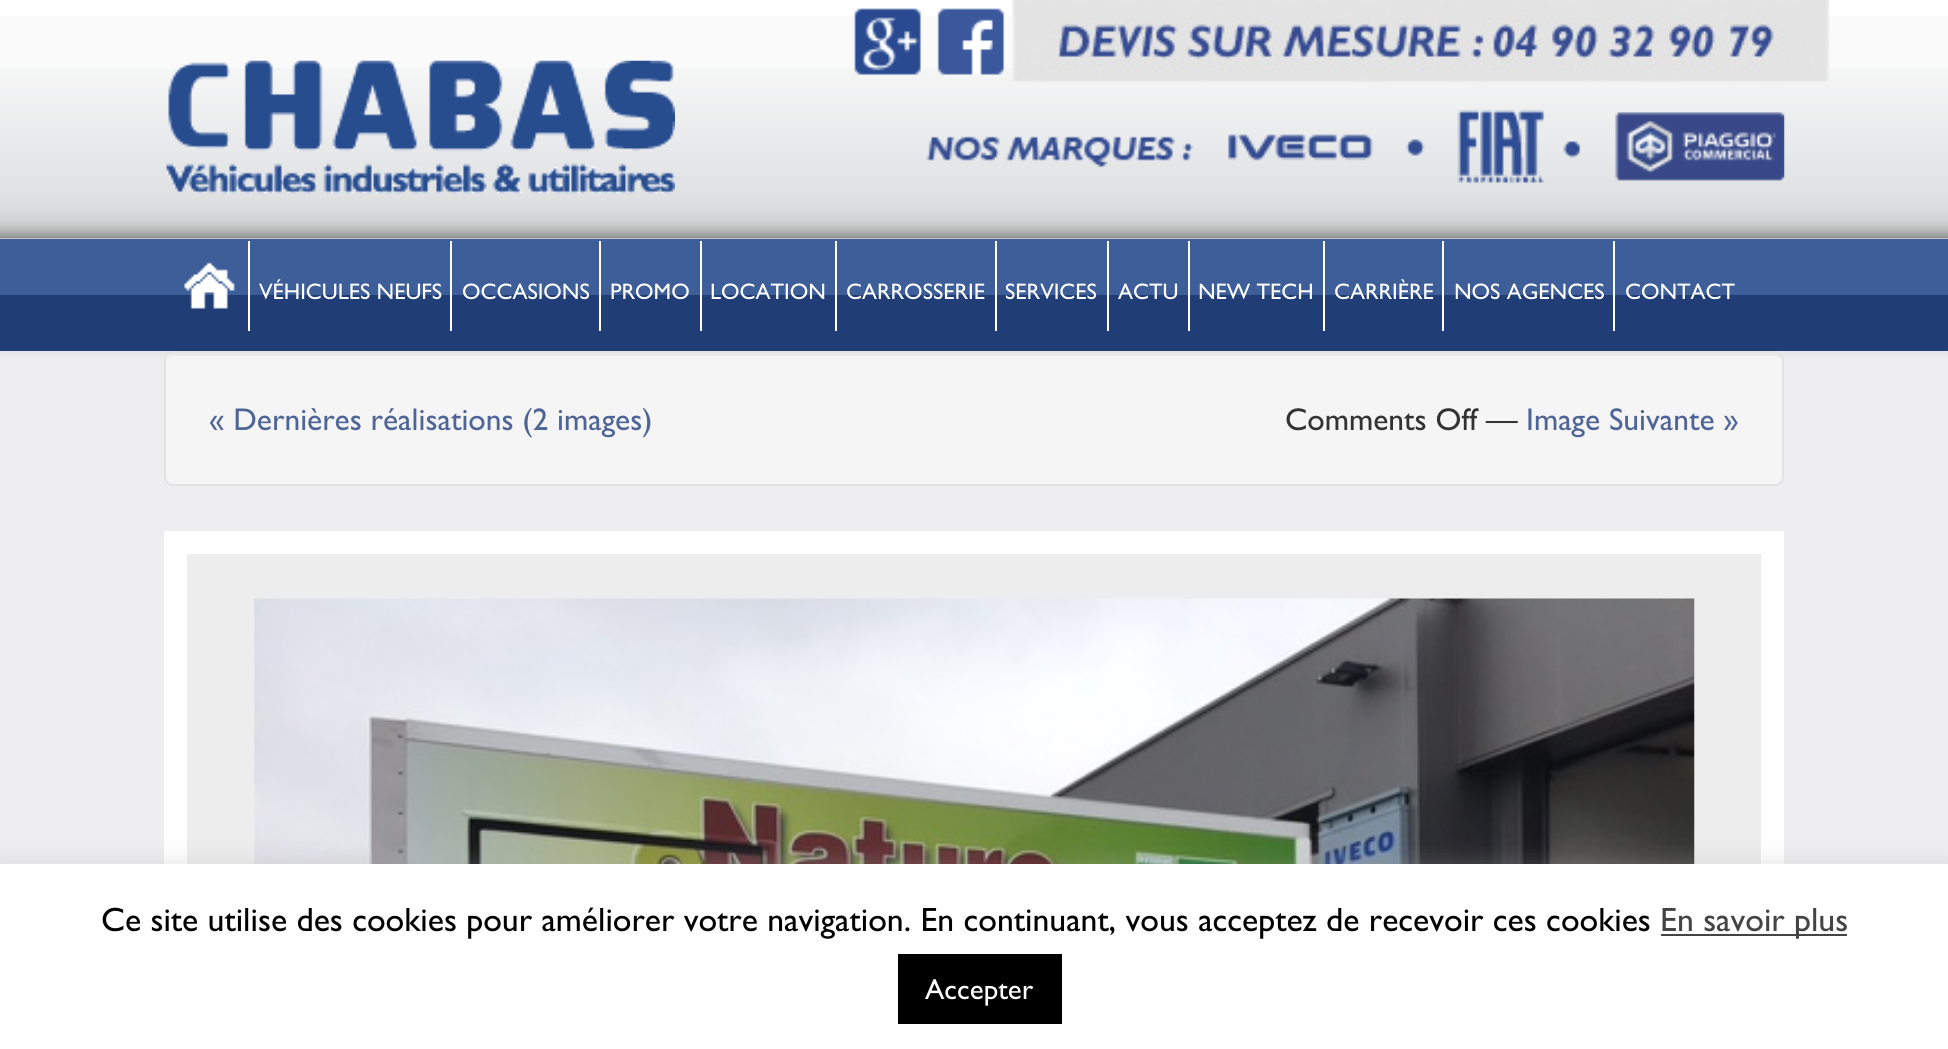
import math
import cairo



def rounded_rect(context, x, y, w, h, r):
    context.new_sub_path()
    for i, (u, v) in enumerate([(x + w - r, y + h - r), (x + r, y + h - r), (x + r, y + r), (x + w - r, y + r)]):
        context.arc(u, v, r, i * math.pi / 2, (i + 1) * math.pi / 2)
    context.close_path()


def draw_shadow(context, x, y, w, h, r, blur, alpha):
    context.push_group_with_content(cairo.Content.ALPHA)
    context.set_operator(cairo.Operator.SOURCE)
    for i in range(15, -16, -2):
        e = blur * i / 6
        if min(w, h) + 2 * e > 0:
            context.set_source_rgba(0, 0, 0, alpha * math.erfc((i - 1) / 8.5) / 2)
            rounded_rect(context, x - e, y - e, w + 2 * e, h + 2 * e, max(0, min(r + e + blur * .6, min(w, h) / 2 + e)))
            context.fill()
    context.mask(context.pop_group())


def draw_image(context, path, x, y, w, h):
    context.save()
    context.set_source_surface(cairo.ImageSurface.create_from_png(path), x, y)
    context.rectangle(x, y, w, h)
    context.fill()
    context.restore()


def draw(context):
    context.set_source_rgb(1, 1, 1)
    context.paint()
    context.set_source_rgb(238 / 255, 238 / 255, 240 / 255)
    context.rectangle(0, 351, 1948, 513)
    context.fill()
    context.set_source_rgb(250 / 255, 250 / 255, 250 / 255)
    context.rectangle(0, 16, 1948, 223)
    context.fill()
    draw_image(context, "images/4.png", 0, 68, 1948, 171)
    draw_image(context, "images/1.png", 854, 8, 67, 67)
    draw_image(context, "images/2.png", 937, 8, 68, 67)
    draw_image(context, "images/3.png", 1012, 0, 818, 83)
    draw_image(context, "images/5.png", 926, 109, 859, 74)
    draw_image(context, "images/6.png", 164, 60, 511, 134)
    context.set_source_rgb(0, 0, 0)
    draw_shadow(context, 0, 241, 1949, 112, 0, 4.5, 0.07)
    context.set_source_rgb(62 / 255, 94 / 255, 153 / 255)
    context.rectangle(0, 239, 1948, 56)
    context.fill()
    context.set_source_rgb(32 / 255, 61 / 255, 117 / 255)
    context.rectangle(0, 295, 1948, 56)
    context.fill()
    draw_image(context, "images/7.png", 184, 262, 51, 47)
    context.set_source_rgb(1, 1, 1)
    context.rectangle(248, 241, 2, 90)
    context.fill()
    context.rectangle(450, 241, 2, 90)
    context.fill()
    context.rectangle(599, 241, 2, 90)
    context.fill()
    context.rectangle(700, 241, 2, 90)
    context.fill()
    context.rectangle(835, 241, 2, 90)
    context.fill()
    context.rectangle(995, 241, 2, 90)
    context.fill()
    context.rectangle(1107, 241, 2, 90)
    context.fill()
    context.rectangle(1188, 241, 2, 90)
    context.fill()
    context.rectangle(1323, 241, 2, 90)
    context.fill()
    context.rectangle(1442, 241, 2, 90)
    context.fill()
    context.rectangle(1613, 241, 2, 90)
    context.fill()
    context.set_source_rgb(245 / 255, 245 / 255, 245 / 255)
    rounded_rect(context, 164, 351, 1620, 135, 9)
    context.fill()
    context.set_source_rgb(233 / 255, 233 / 255, 233 / 255)
    context.new_path()
    context.move_to(173, 356)
    context.line_to(1775, 356)
    context.curve_to(1779, 356, 1782, 359, 1782, 362)
    context.line_to(1782, 360)
    context.curve_to(1782, 356, 1779, 353, 1775, 353)
    context.line_to(174, 353)
    context.curve_to(170, 353, 167, 356, 167, 359)
    context.curve_to(168, 357, 171, 356, 173, 356)
    context.close_path()
    context.fill()
    rounded_rect(context, 165, 352, 1618, 133, 8)
    context.set_source_rgb(227 / 255, 227 / 255, 227 / 255)
    context.stroke()
    context.set_source_rgb(237 / 255, 237 / 255, 237 / 255)
    context.rectangle(187, 554, 1574, 310)
    context.fill()
    context.rectangle(175.5, 542.5, 1597, 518)
    context.set_source_rgb(1, 1, 1)
    context.set_line_width(23)
    context.stroke()
    draw_image(context, "images/8.png", 254, 598, 1441, 266)
    context.set_source_rgb(172 / 255, 171 / 255, 171 / 255)
    draw_shadow(context, 0, 862, 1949, 187, 0, 11, 0.3)
    context.set_source_rgb(1, 1, 1)
    context.rectangle(0, 864, 1948, 185)
    context.fill()
    context.set_source_rgb(68 / 255, 68 / 255, 68 / 255)
    context.rectangle(1661, 934, 186, 2)
    context.fill()
    context.set_source_rgb(0, 0, 0)
    context.rectangle(898, 954, 164, 70)
    context.fill()
    context.select_font_face("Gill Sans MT")
    context.set_font_size(22.5)
    context.set_source_rgb(1, 1, 1)
    context.move_to(259, 299)
    context.show_text("VÉHICULES NEUFS")
    context.move_to(462, 299)
    context.show_text("OCCASIONS")
    context.move_to(610, 299)
    context.show_text("PROMO")
    context.move_to(710, 299)
    context.show_text("LOCATION")
    context.move_to(846, 299)
    context.show_text("CARROSSERIE")
    context.move_to(1005, 299)
    context.show_text("SERVICES")
    context.move_to(1118, 299)
    context.show_text("ACTU")
    context.move_to(1198, 299)
    context.show_text("NEW TECH")
    context.move_to(1334, 299)
    context.show_text("CARRIÈRE")
    context.move_to(1454, 299)
    context.show_text("NOS AGENCES")
    context.move_to(1625, 299)
    context.show_text("CONTACT")
    context.set_font_size(31.5)
    context.set_source_rgb(79 / 255, 101 / 255, 151 / 255)
    context.move_to(209, 430)
    context.show_text("« Dernières réalisations (2 images)")
    context.set_source_rgb(51 / 255, 51 / 255, 51 / 255)
    context.move_to(1285, 430)
    context.show_text("Comments Off —")
    context.set_source_rgb(79 / 255, 101 / 255, 151 / 255)
    context.move_to(1526, 430)
    context.show_text("Image Suivante »")
    context.set_font_size(33.75)
    context.set_source_rgb(0, 0, 0)
    context.move_to(101, 931)
    context.show_text("Ce site utilise des cookies pour améliorer votre navigation. En continuant, vous acceptez de recevoir ces cookies")
    context.set_source_rgb(68 / 255, 68 / 255, 68 / 255)
    context.move_to(1660, 931)
    context.show_text("En savoir plus")
    context.set_font_size(29)
    context.set_source_rgb(1, 1, 1)
    context.move_to(925, 999)
    context.show_text("Accepter")


surface = cairo.ImageSurface(cairo.Format.RGB24, 1948, 1049)
context = cairo.Context(surface)
options = cairo.FontOptions()
options.set_hint_metrics(cairo.HintMetrics.OFF)
options.set_hint_style(cairo.HintStyle.NONE)
context.set_font_options(options)
context.set_miter_limit(4)
draw(context)
surface.write_to_png("out.png")
